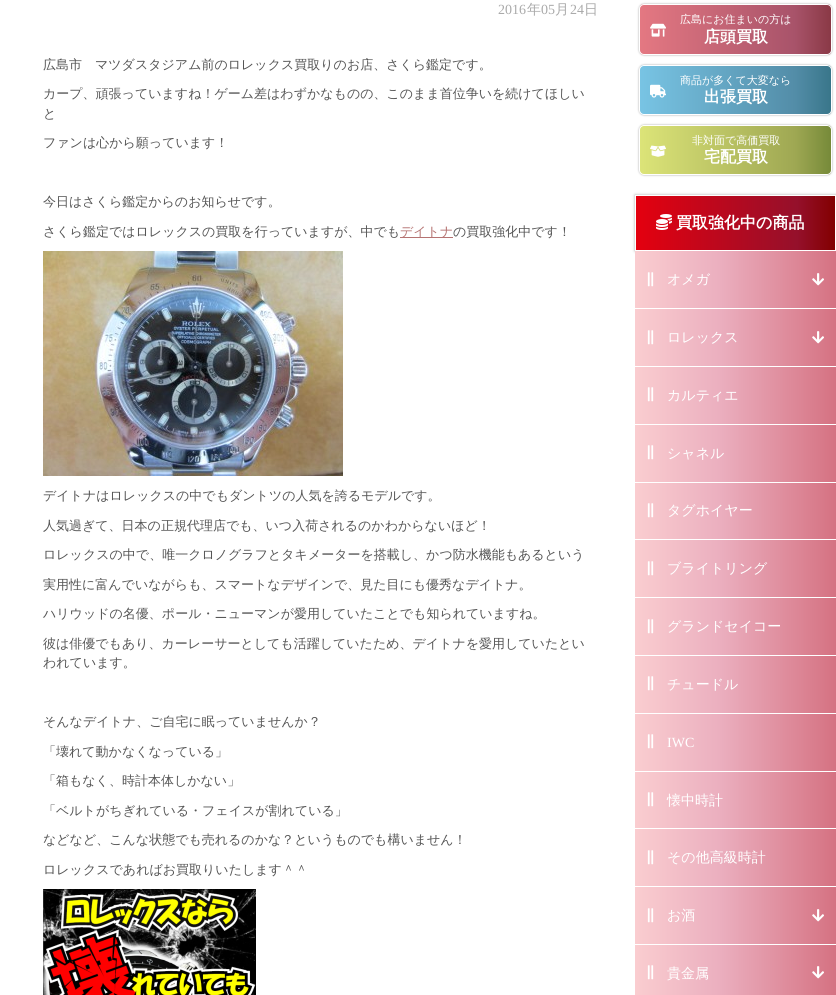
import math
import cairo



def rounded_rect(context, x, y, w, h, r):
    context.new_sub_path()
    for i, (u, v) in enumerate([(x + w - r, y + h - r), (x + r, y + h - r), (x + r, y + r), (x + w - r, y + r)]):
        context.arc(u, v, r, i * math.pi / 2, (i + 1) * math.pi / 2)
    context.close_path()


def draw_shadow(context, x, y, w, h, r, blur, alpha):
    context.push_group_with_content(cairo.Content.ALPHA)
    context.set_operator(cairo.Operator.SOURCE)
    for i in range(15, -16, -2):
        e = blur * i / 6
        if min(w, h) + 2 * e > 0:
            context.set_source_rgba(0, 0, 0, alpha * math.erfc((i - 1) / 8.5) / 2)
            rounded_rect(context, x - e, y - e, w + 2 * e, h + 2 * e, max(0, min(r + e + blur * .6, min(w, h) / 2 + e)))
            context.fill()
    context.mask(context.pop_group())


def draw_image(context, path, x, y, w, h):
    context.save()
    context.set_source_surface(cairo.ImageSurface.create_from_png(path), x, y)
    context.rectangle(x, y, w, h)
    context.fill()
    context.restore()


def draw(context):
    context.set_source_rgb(1, 1, 1)
    context.paint()
    context.set_source_rgb(181 / 255, 115 / 255, 114 / 255)
    context.rectangle(400, 237, 53, 1)
    context.fill()
    draw_image(context, "images/1.png", 43, 251, 300, 225)
    draw_image(context, "images/2.png", 43, 889, 213, 106)
    context.set_source_rgb(170 / 255, 170 / 255, 170 / 255)
    draw_shadow(context, 639, 4, 193, 51, 5, 1, 1)
    context.save()
    rounded_rect(context, 639, 4, 193, 51, 5)
    context.clip()
    gradient = cairo.LinearGradient(640, 30, 831, 29)
    gradient.add_color_stop_rgba(0, 228 / 255, 120 / 255, 130 / 255, 1)
    gradient.add_color_stop_rgba(0.81, 168 / 255, 83 / 255, 106 / 255, 1)
    gradient.add_color_stop_rgba(1, 138 / 255, 57 / 255, 70 / 255, 1)
    context.set_source(gradient)
    context.rectangle(640, 4, 191, 51)
    context.fill()
    context.restore()
    rounded_rect(context, 639.5, 4.5, 192, 50, 4.5)
    context.set_source_rgb(1, 1, 1)
    context.set_line_width(1)
    context.stroke()
    draw_image(context, "images/3.png", 650, 23, 16, 14)
    context.set_source_rgb(170 / 255, 170 / 255, 170 / 255)
    draw_shadow(context, 639, 65, 193, 50, 5, 1, 1)
    context.save()
    rounded_rect(context, 639, 65, 193, 50, 5)
    context.clip()
    gradient = cairo.LinearGradient(640, 90, 831, 90)
    gradient.add_color_stop_rgba(0, 120 / 255, 196 / 255, 228 / 255, 1)
    gradient.add_color_stop_rgba(0.81, 83 / 255, 141 / 255, 168 / 255, 1)
    gradient.add_color_stop_rgba(1, 57 / 255, 118 / 255, 138 / 255, 1)
    context.set_source(gradient)
    context.rectangle(640, 65, 191, 50)
    context.fill()
    context.restore()
    rounded_rect(context, 639.5, 65.5, 192, 49, 4.5)
    context.set_source_rgb(1, 1, 1)
    context.stroke()
    draw_image(context, "images/4.png", 650, 84, 16, 14)
    context.set_source_rgb(170 / 255, 170 / 255, 170 / 255)
    draw_shadow(context, 639, 125, 193, 50, 5, 1, 1)
    context.save()
    rounded_rect(context, 639, 125, 193, 50, 5)
    context.clip()
    gradient = cairo.LinearGradient(640, 150, 831, 150)
    gradient.add_color_stop_rgba(0, 220 / 255, 228 / 255, 120 / 255, 1)
    gradient.add_color_stop_rgba(0.81, 159 / 255, 168 / 255, 83 / 255, 1)
    gradient.add_color_stop_rgba(1, 118 / 255, 138 / 255, 57 / 255, 1)
    context.set_source(gradient)
    context.rectangle(640, 125, 191, 50)
    context.fill()
    context.restore()
    rounded_rect(context, 639.5, 125.5, 192, 49, 4.5)
    context.set_source_rgb(1, 1, 1)
    context.stroke()
    draw_image(context, "images/5.png", 650, 145, 16, 12)
    context.set_source_rgb(170 / 255, 170 / 255, 170 / 255)
    draw_shadow(context, 635, 195, 201, 56, 0, 1.5, 1)
    gradient = cairo.LinearGradient(636, 223, 835, 223)
    gradient.add_color_stop_rgba(0, 228 / 255, 0, 15 / 255, 1)
    gradient.add_color_stop_rgba(0.81, 149 / 255, 16 / 255, 43 / 255, 1)
    gradient.add_color_stop_rgba(1, 130 / 255, 0, 0, 1)
    context.set_source(gradient)
    context.rectangle(636, 196, 199, 54)
    context.fill()
    context.rectangle(635.5, 195.5, 200, 55)
    context.set_source_rgb(1, 1, 1)
    context.stroke()
    draw_image(context, "images/6.png", 656, 214, 16, 16)
    gradient = cairo.LinearGradient(635, 714, 836, 714)
    gradient.add_color_stop_rgba(0, 250 / 255, 205 / 255, 208 / 255, 1)
    gradient.add_color_stop_rgba(0.42, 235 / 255, 175 / 255, 191 / 255, 1)
    gradient.add_color_stop_rgba(1, 213 / 255, 114 / 255, 130 / 255, 1)
    context.set_source(gradient)
    context.rectangle(635, 251, 201, 744)
    context.fill()
    context.set_source_rgb(1, 1, 1)
    context.rectangle(635, 308, 201, 1)
    context.fill()
    draw_image(context, "images/7.png", 647, 272, 7, 15)
    draw_image(context, "images/8.png", 812, 273, 12, 13)
    context.rectangle(635, 366, 201, 1)
    context.fill()
    draw_image(context, "images/7.png", 647, 330, 7, 15)
    draw_image(context, "images/8.png", 812, 331, 12, 13)
    context.rectangle(635, 424, 201, 1)
    context.fill()
    draw_image(context, "images/7.png", 647, 387, 7, 15)
    context.rectangle(635, 482, 201, 1)
    context.fill()
    draw_image(context, "images/7.png", 647, 445, 7, 15)
    context.rectangle(635, 539, 201, 1)
    context.fill()
    draw_image(context, "images/7.png", 647, 503, 7, 15)
    context.rectangle(635, 597, 201, 1)
    context.fill()
    draw_image(context, "images/7.png", 647, 561, 7, 15)
    context.rectangle(635, 655, 201, 1)
    context.fill()
    draw_image(context, "images/7.png", 647, 619, 7, 15)
    context.rectangle(635, 713, 201, 1)
    context.fill()
    draw_image(context, "images/7.png", 647, 676, 7, 15)
    context.rectangle(635, 771, 201, 1)
    context.fill()
    draw_image(context, "images/7.png", 647, 734, 7, 15)
    context.rectangle(635, 828, 201, 1)
    context.fill()
    draw_image(context, "images/7.png", 647, 792, 7, 15)
    context.rectangle(635, 886, 201, 1)
    context.fill()
    draw_image(context, "images/7.png", 647, 850, 7, 15)
    context.rectangle(635, 944, 201, 1)
    context.fill()
    draw_image(context, "images/7.png", 647, 908, 7, 15)
    draw_image(context, "images/8.png", 812, 909, 12, 13)
    draw_image(context, "images/7.png", 647, 965, 7, 15)
    draw_image(context, "images/8.png", 812, 966, 12, 13)
    context.select_font_face("Liberation Serif")
    context.set_font_size(14)
    context.set_source_rgb(170 / 255, 170 / 255, 170 / 255)
    context.move_to(498, 14)
    context.show_text("2016")
    context.select_font_face("WenQuanYi Zen Hei Medium")
    context.move_to(527, 14)
    context.show_text("年")
    context.select_font_face("Liberation Serif")
    context.move_to(541, 14)
    context.show_text("05")
    context.select_font_face("WenQuanYi Zen Hei Medium")
    context.move_to(555, 14)
    context.show_text("月")
    context.select_font_face("Liberation Serif")
    context.move_to(570, 14)
    context.show_text("24")
    context.select_font_face("WenQuanYi Zen Hei Medium")
    context.move_to(584, 14)
    context.show_text("日")
    context.set_font_size(13)
    context.set_source_rgb(85 / 255, 85 / 255, 85 / 255)
    context.move_to(43, 69)
    context.show_text("広島市　マツダスタジアム前のロレックス買取りのお店、さくら鑑定です。")
    context.move_to(43, 98)
    context.show_text("カープ、頑張っていますね！ゲーム差はわずかなものの、このまま首位争いを続けてほしい")
    context.move_to(43, 118)
    context.show_text("と")
    context.move_to(43, 147)
    context.show_text("ファンは心から願っています！")
    context.move_to(43, 206)
    context.show_text("今日はさくら鑑定からのお知らせです。")
    context.move_to(43, 236)
    context.show_text("さくら鑑定ではロレックスの買取を行っていますが、中でも")
    context.set_source_rgb(181 / 255, 115 / 255, 114 / 255)
    context.move_to(400, 236)
    context.show_text("デイトナ")
    context.set_source_rgb(85 / 255, 85 / 255, 85 / 255)
    context.move_to(453, 236)
    context.show_text("の買取強化中です！")
    context.move_to(43, 500)
    context.show_text("デイトナはロレックスの中でもダントツの人気を誇るモデルです。")
    context.move_to(43, 530)
    context.show_text("人気過ぎて、日本の正規代理店でも、いつ入荷されるのかわからないほど！")
    context.move_to(43, 559)
    context.show_text("ロレックスの中で、唯一クロノグラフとタキメーターを搭載し、かつ防水機能もあるという")
    context.move_to(43, 589)
    context.show_text("実用性に富んでいながらも、スマートなデザインで、見た目にも優秀なデイトナ。")
    context.move_to(43, 618)
    context.show_text("ハリウッドの名優、ポール・ニューマンが愛用していたことでも知られていますね。")
    context.move_to(43, 648)
    context.show_text("彼は俳優でもあり、カーレーサーとしても活躍していたため、デイトナを愛用していたとい")
    context.move_to(43, 667)
    context.show_text("われています。")
    context.move_to(43, 726)
    context.show_text("そんなデイトナ、ご自宅に眠っていませんか？")
    context.move_to(43, 756)
    context.show_text("「壊れて動かなくなっている」")
    context.move_to(43, 785)
    context.show_text("「箱もなく、時計本体しかない」")
    context.move_to(43, 815)
    context.show_text("「ベルトがちぎれている・フェイスが割れている」")
    context.move_to(43, 844)
    context.show_text("などなど、こんな状態でも売れるのかな？というものでも構いません！")
    context.move_to(43, 874)
    context.show_text("ロレックスであればお買取りいたします＾＾")
    context.set_font_size(11)
    context.set_source_rgb(1, 1, 1)
    context.move_to(680, 23)
    context.show_text("広島にお住まいの方は")
    context.select_font_face("WenQuanYi Zen Hei", cairo.FontSlant.NORMAL, cairo.FontWeight.BOLD)
    context.set_font_size(16)
    context.move_to(704, 42)
    context.show_text("店頭買取")
    context.select_font_face("WenQuanYi Zen Hei Medium")
    context.set_font_size(11)
    context.move_to(680, 84)
    context.show_text("商品が多くて大変なら")
    context.select_font_face("WenQuanYi Zen Hei", cairo.FontSlant.NORMAL, cairo.FontWeight.BOLD)
    context.set_font_size(16)
    context.move_to(704, 102)
    context.show_text("出張買取")
    context.select_font_face("WenQuanYi Zen Hei Medium")
    context.set_font_size(11)
    context.move_to(692, 144)
    context.show_text("非対面で高価買取")
    context.select_font_face("WenQuanYi Zen Hei", cairo.FontSlant.NORMAL, cairo.FontWeight.BOLD)
    context.set_font_size(16)
    context.move_to(704, 162)
    context.show_text("宅配買取")
    context.move_to(676, 228)
    context.show_text("買取強化中の商品")
    context.select_font_face("WenQuanYi Zen Hei Medium")
    context.set_font_size(14)
    context.move_to(667, 284)
    context.show_text("オメガ")
    context.move_to(667, 342)
    context.show_text("ロレックス")
    context.move_to(667, 400)
    context.show_text("カルティエ")
    context.move_to(667, 458)
    context.show_text("シャネル")
    context.move_to(667, 515)
    context.show_text("タグホイヤー")
    context.move_to(667, 573)
    context.show_text("ブライトリング")
    context.move_to(667, 631)
    context.show_text("グランドセイコー")
    context.move_to(667, 689)
    context.show_text("チュードル")
    context.select_font_face("Liberation Serif")
    context.move_to(667, 747)
    context.show_text("IWC")
    context.select_font_face("WenQuanYi Zen Hei Medium")
    context.move_to(667, 805)
    context.show_text("懐中時計")
    context.move_to(667, 862)
    context.show_text("その他高級時計")
    context.move_to(667, 920)
    context.show_text("お酒")
    context.move_to(667, 978)
    context.show_text("貴金属")


surface = cairo.ImageSurface(cairo.Format.RGB24, 836, 995)
context = cairo.Context(surface)
options = cairo.FontOptions()
options.set_hint_metrics(cairo.HintMetrics.OFF)
options.set_hint_style(cairo.HintStyle.NONE)
context.set_font_options(options)
context.set_miter_limit(4)
draw(context)
surface.write_to_png("out.png")
